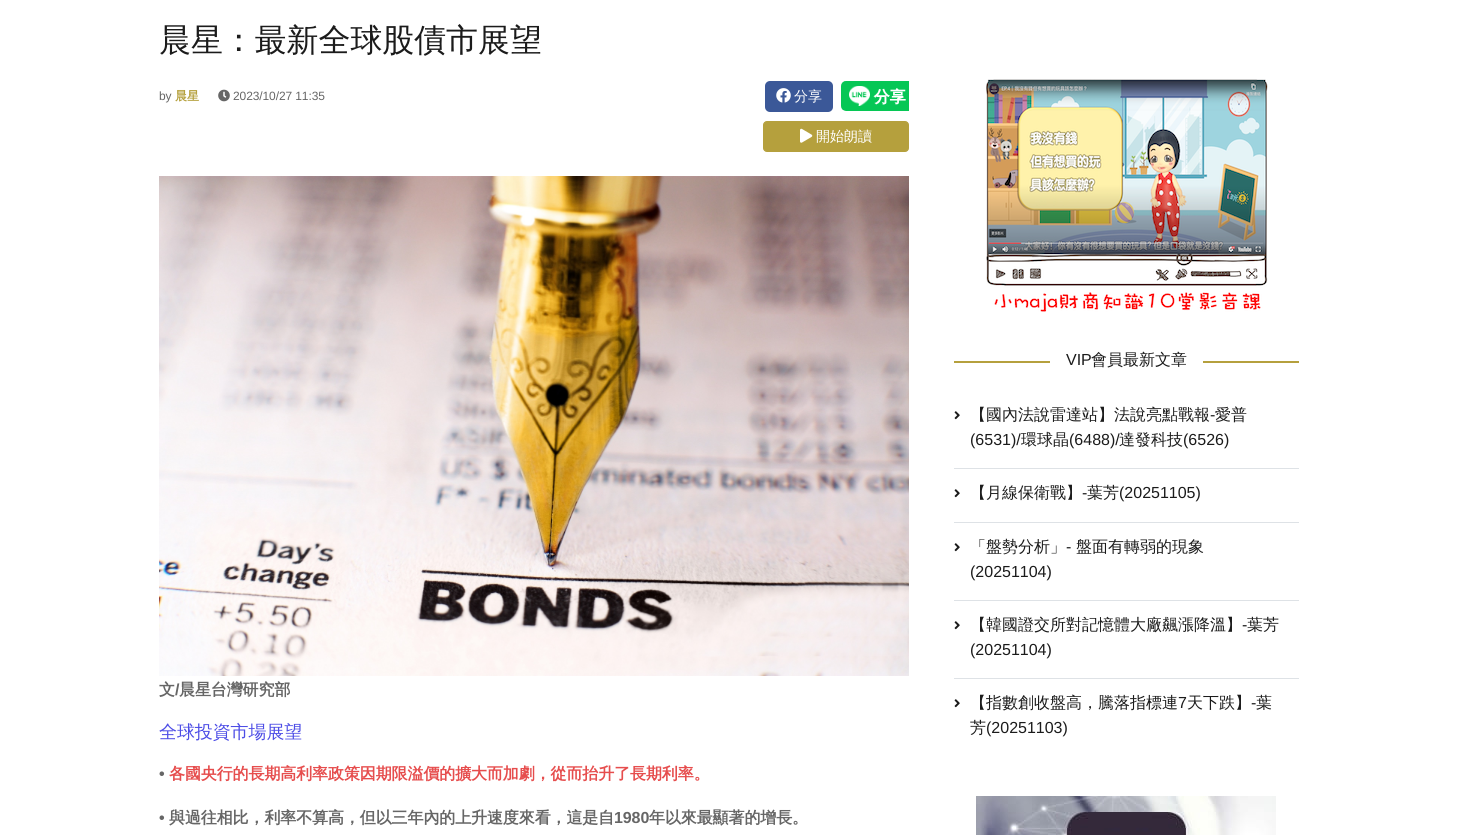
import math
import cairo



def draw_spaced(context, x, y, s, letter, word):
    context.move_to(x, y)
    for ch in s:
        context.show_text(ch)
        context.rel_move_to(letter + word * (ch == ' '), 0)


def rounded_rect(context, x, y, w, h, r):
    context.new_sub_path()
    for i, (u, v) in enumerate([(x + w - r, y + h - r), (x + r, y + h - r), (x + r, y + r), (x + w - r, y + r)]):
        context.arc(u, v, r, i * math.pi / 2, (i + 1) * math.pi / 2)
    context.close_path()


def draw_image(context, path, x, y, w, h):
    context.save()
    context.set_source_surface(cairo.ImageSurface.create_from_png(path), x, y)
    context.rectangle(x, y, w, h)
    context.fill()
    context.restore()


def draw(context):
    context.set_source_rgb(1, 1, 1)
    context.paint()
    draw_image(context, "images/1.png", 218, 89, 12, 13)
    context.set_source_rgb(59 / 255, 88 / 255, 152 / 255)
    rounded_rect(context, 765, 81, 68, 31, 5)
    context.fill()
    draw_image(context, "images/2.png", 776, 88, 15, 15)
    draw_image(context, "images/3.png", 841, 81, 68, 30)
    context.set_source_rgb(181 / 255, 160 / 255, 61 / 255)
    rounded_rect(context, 763.5, 121.5, 145, 30, 3.5)
    context.fill_preserve()
    context.set_line_width(1)
    context.stroke()
    draw_image(context, "images/4.png", 800, 128, 13, 15)
    draw_image(context, "images/5.png", 159, 176, 750, 500)
    draw_image(context, "images/6.png", 986, 79, 282, 233)
    context.rectangle(954, 361, 345, 2)
    context.fill()
    context.set_source_rgb(1, 1, 1)
    context.rectangle(1050, 361, 153, 2)
    context.fill()
    context.set_source_rgb(222 / 255, 226 / 255, 230 / 255)
    context.rectangle(954, 468, 345, 1)
    context.fill()
    draw_image(context, "images/7.png", 954, 411, 6, 9)
    context.rectangle(954, 522, 345, 1)
    context.fill()
    draw_image(context, "images/7.png", 954, 489, 6, 9)
    context.rectangle(954, 600, 345, 1)
    context.fill()
    draw_image(context, "images/7.png", 954, 543, 6, 9)
    context.rectangle(954, 678, 345, 1)
    context.fill()
    draw_image(context, "images/7.png", 954, 621, 6, 9)
    draw_image(context, "images/7.png", 954, 699, 6, 9)
    draw_image(context, "images/8.png", 976, 796, 300, 39)
    context.select_font_face("WenQuanYi Zen Hei Medium")
    context.set_font_size(32)
    context.set_source_rgb(27 / 255, 27 / 255, 27 / 255)
    draw_spaced(context, 159, 51, "晨星：最新全球股債市展望", -0.1, 0)
    context.select_font_face("Liberation Sans")
    context.set_font_size(12)
    context.set_source_rgb(102 / 255, 102 / 255, 102 / 255)
    draw_spaced(context, 159, 100, "by", -0.1, 0)
    context.select_font_face("WenQuanYi Zen Hei", cairo.FontSlant.NORMAL, cairo.FontWeight.BOLD)
    context.set_source_rgb(181 / 255, 160 / 255, 61 / 255)
    draw_spaced(context, 175, 100, "晨星", -0.1, 0)
    context.select_font_face("Liberation Sans")
    context.set_source_rgb(102 / 255, 102 / 255, 102 / 255)
    draw_spaced(context, 233, 100, "2023/10/27 11:35", -0.1, 0)
    context.select_font_face("WenQuanYi Zen Hei Medium")
    context.set_font_size(14)
    context.set_source_rgb(1, 1, 1)
    context.move_to(794, 101)
    context.show_text("分享")
    context.move_to(816, 141)
    context.show_text("開始朗讀")
    context.select_font_face("WenQuanYi Zen Hei", cairo.FontSlant.NORMAL, cairo.FontWeight.BOLD)
    context.set_font_size(16)
    context.set_source_rgb(102 / 255, 102 / 255, 102 / 255)
    draw_spaced(context, 159, 695, "文", -0.1, 0)
    context.select_font_face("Liberation Sans", cairo.FontSlant.NORMAL, cairo.FontWeight.BOLD)
    draw_spaced(context, 175, 695, "/", -0.1, 0)
    context.select_font_face("WenQuanYi Zen Hei", cairo.FontSlant.NORMAL, cairo.FontWeight.BOLD)
    draw_spaced(context, 179, 695, "晨星台灣研究部", -0.1, 0)
    context.select_font_face("WenQuanYi Zen Hei Medium")
    context.set_font_size(18)
    context.set_source_rgb(77 / 255, 77 / 255, 230 / 255)
    draw_spaced(context, 159, 738, "全球投資市場展望", -0.1, 0)
    context.select_font_face("Liberation Sans", cairo.FontSlant.NORMAL, cairo.FontWeight.BOLD)
    context.set_font_size(16)
    context.set_source_rgb(102 / 255, 102 / 255, 102 / 255)
    draw_spaced(context, 159, 779, "•", -0.1, 0)
    context.select_font_face("WenQuanYi Zen Hei", cairo.FontSlant.NORMAL, cairo.FontWeight.BOLD)
    context.set_source_rgb(230 / 255, 77 / 255, 77 / 255)
    draw_spaced(context, 169, 779, "各國央行的長期高利率政策因期限溢價的擴大而加劇，從而抬升了長期利率。", -0.1, 0)
    context.select_font_face("Liberation Sans", cairo.FontSlant.NORMAL, cairo.FontWeight.BOLD)
    context.set_source_rgb(102 / 255, 102 / 255, 102 / 255)
    draw_spaced(context, 159, 823, "•", -0.1, 0)
    context.select_font_face("WenQuanYi Zen Hei", cairo.FontSlant.NORMAL, cairo.FontWeight.BOLD)
    draw_spaced(context, 169, 823, "與過往相比，利率不算高，但以三年內的上升速度來看，這是自", -0.1, 0)
    context.select_font_face("Liberation Sans", cairo.FontSlant.NORMAL, cairo.FontWeight.BOLD)
    draw_spaced(context, 614, 823, "1980", -0.1, 0)
    context.select_font_face("WenQuanYi Zen Hei", cairo.FontSlant.NORMAL, cairo.FontWeight.BOLD)
    draw_spaced(context, 649, 823, "年以來最顯著的增長。", -0.1, 0)
    context.select_font_face("Liberation Sans")
    context.set_source_rgb(27 / 255, 27 / 255, 27 / 255)
    context.move_to(1066, 365)
    context.show_text("VIP")
    context.select_font_face("WenQuanYi Zen Hei Medium")
    context.move_to(1091, 365)
    context.show_text("會員最新文章")
    context.move_to(970, 420)
    context.show_text("【國內法說雷達站】法說亮點戰報")
    context.select_font_face("Liberation Sans")
    context.move_to(1210, 420)
    context.show_text("-")
    context.select_font_face("WenQuanYi Zen Hei Medium")
    context.move_to(1215, 420)
    context.show_text("愛普")
    context.select_font_face("Liberation Sans")
    context.move_to(970, 445)
    context.show_text("(6531)/")
    context.select_font_face("WenQuanYi Zen Hei Medium")
    context.move_to(1021, 445)
    context.show_text("環球晶")
    context.select_font_face("Liberation Sans")
    context.move_to(1069, 445)
    context.show_text("(6488)/")
    context.select_font_face("WenQuanYi Zen Hei Medium")
    context.move_to(1119, 445)
    context.show_text("達發科技")
    context.select_font_face("Liberation Sans")
    context.move_to(1183, 445)
    context.show_text("(6526)")
    context.select_font_face("WenQuanYi Zen Hei Medium")
    context.move_to(970, 498)
    context.show_text("【月線保衛戰】")
    context.select_font_face("Liberation Sans")
    context.move_to(1082, 498)
    context.show_text("-")
    context.select_font_face("WenQuanYi Zen Hei Medium")
    context.move_to(1087, 498)
    context.show_text("葉芳")
    context.select_font_face("Liberation Sans")
    context.move_to(1119, 498)
    context.show_text("(20251105)")
    context.select_font_face("WenQuanYi Zen Hei Medium")
    context.move_to(970, 552)
    context.show_text("「盤勢分析」")
    context.select_font_face("Liberation Sans")
    context.move_to(1066, 552)
    context.show_text("-")
    context.select_font_face("WenQuanYi Zen Hei Medium")
    context.move_to(1076, 552)
    context.show_text("盤面有轉弱的現象")
    context.select_font_face("Liberation Sans")
    context.move_to(970, 577)
    context.show_text("(20251104)")
    context.select_font_face("WenQuanYi Zen Hei Medium")
    context.move_to(970, 630)
    context.show_text("【韓國證交所對記憶體大廠飆漲降溫】")
    context.select_font_face("Liberation Sans")
    context.move_to(1242, 630)
    context.show_text("-")
    context.select_font_face("WenQuanYi Zen Hei Medium")
    context.move_to(1247, 630)
    context.show_text("葉芳")
    context.select_font_face("Liberation Sans")
    context.move_to(970, 655)
    context.show_text("(20251104)")
    context.select_font_face("WenQuanYi Zen Hei Medium")
    context.move_to(970, 708)
    context.show_text("【指數創收盤高，騰落指標連")
    context.select_font_face("Liberation Sans")
    context.move_to(1178, 708)
    context.show_text("7")
    context.select_font_face("WenQuanYi Zen Hei Medium")
    context.move_to(1187, 708)
    context.show_text("天下跌】")
    context.select_font_face("Liberation Sans")
    context.move_to(1251, 708)
    context.show_text("-")
    context.select_font_face("WenQuanYi Zen Hei Medium")
    context.move_to(1256, 708)
    context.show_text("葉")
    context.move_to(970, 733)
    context.show_text("芳")
    context.select_font_face("Liberation Sans")
    context.move_to(986, 733)
    context.show_text("(20251103)")


surface = cairo.ImageSurface(cairo.Format.RGB24, 1458, 835)
context = cairo.Context(surface)
options = cairo.FontOptions()
options.set_hint_metrics(cairo.HintMetrics.OFF)
options.set_hint_style(cairo.HintStyle.NONE)
context.set_font_options(options)
context.set_miter_limit(4)
draw(context)
surface.write_to_png("out.png")
